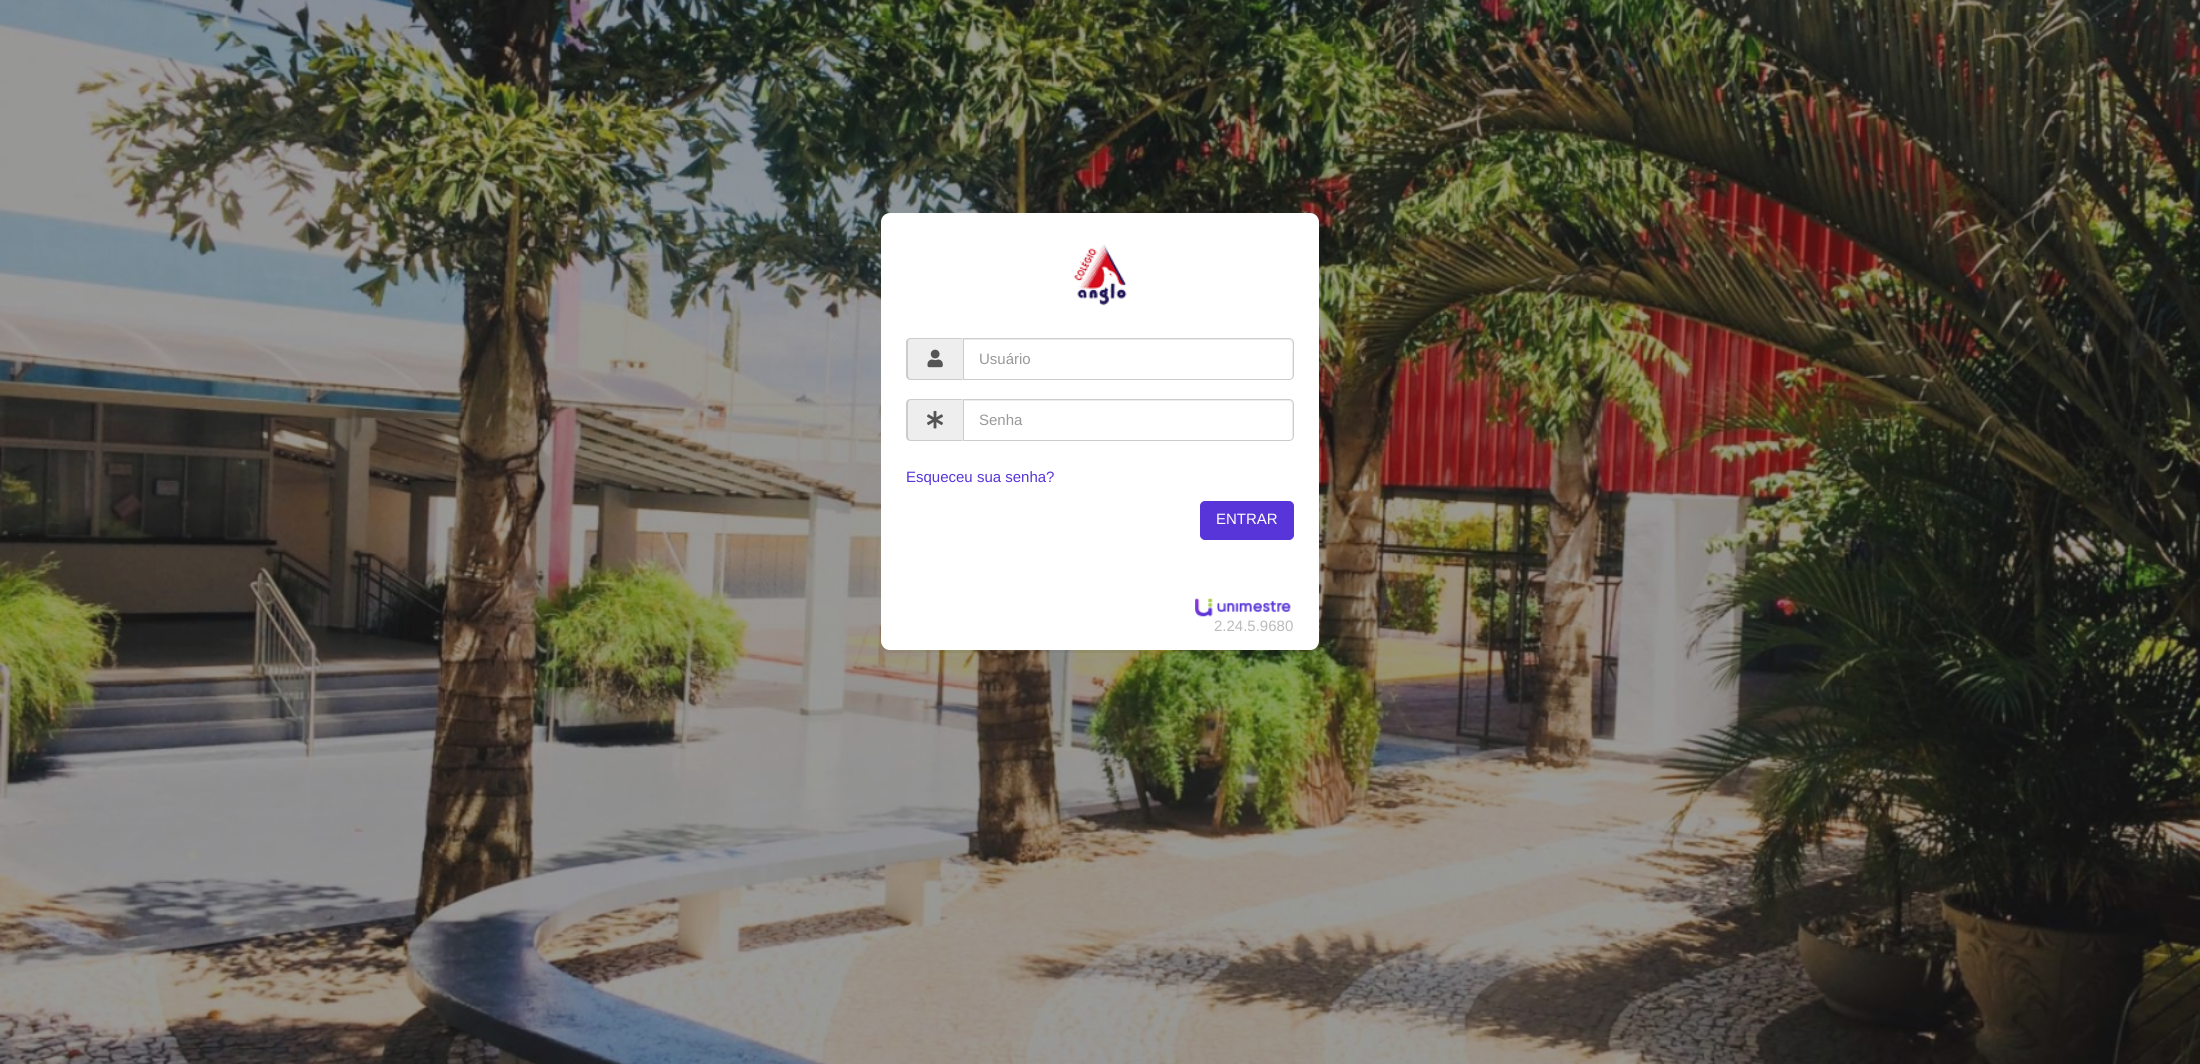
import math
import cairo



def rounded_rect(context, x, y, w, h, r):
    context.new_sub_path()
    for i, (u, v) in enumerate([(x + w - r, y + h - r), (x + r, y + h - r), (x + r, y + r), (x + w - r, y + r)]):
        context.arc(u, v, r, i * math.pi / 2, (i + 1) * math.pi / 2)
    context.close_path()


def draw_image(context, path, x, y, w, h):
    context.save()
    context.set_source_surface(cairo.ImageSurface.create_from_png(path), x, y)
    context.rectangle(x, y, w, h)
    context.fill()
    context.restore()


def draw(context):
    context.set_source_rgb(33 / 255, 33 / 255, 36 / 255)
    context.paint()
    draw_image(context, "images/1.png", 0, 0, 2200, 1064)
    context.set_source_rgba(0, 0, 0, 0.05)
    context.new_path()
    context.move_to(881, 222)
    context.line_to(881, 644)
    context.curve_to(881, 649, 885, 653, 890, 653)
    context.line_to(1310, 653)
    context.curve_to(1315, 653, 1319, 649, 1319, 644)
    context.line_to(1319, 222)
    context.line_to(1319, 641)
    context.curve_to(1319, 646, 1315, 650, 1310, 650)
    context.line_to(890, 650)
    context.curve_to(885, 650, 881, 646, 881, 641)
    context.close_path()
    context.fill()
    context.set_source_rgb(1, 1, 1)
    rounded_rect(context, 881, 213, 438, 437, 9)
    context.fill()
    draw_image(context, "images/2.png", 1073, 244, 54, 62)
    context.set_source_rgb(238 / 255, 238 / 255, 238 / 255)
    context.new_path()
    context.move_to(911, 338)
    context.line_to(963, 338)
    context.line_to(963, 380)
    context.line_to(911, 380)
    context.curve_to(908, 380, 906, 378, 906, 375)
    context.line_to(906, 343)
    context.curve_to(906, 340, 908, 338, 911, 338)
    context.close_path()
    context.fill()
    context.set_source_rgb(204 / 255, 204 / 255, 204 / 255)
    context.set_fill_rule(cairo.FillRule.EVEN_ODD)
    context.new_path()
    context.move_to(911, 338)
    context.line_to(962, 338)
    context.line_to(962, 380)
    context.line_to(911, 380)
    context.curve_to(908, 380, 906, 378, 906, 375)
    context.line_to(906, 342)
    context.curve_to(906, 340, 908, 338, 911, 338)
    context.close_path()
    context.move_to(911, 339)
    context.line_to(962, 339)
    context.line_to(962, 379)
    context.line_to(911, 379)
    context.curve_to(909, 379, 908, 377, 908, 375)
    context.line_to(908, 342)
    context.curve_to(908, 340, 909, 339, 911, 339)
    context.close_path()
    context.fill()
    draw_image(context, "images/3.png", 927, 349, 16, 19)
    context.set_source_rgb(236 / 255, 236 / 255, 236 / 255)
    context.set_fill_rule(cairo.FillRule.WINDING)
    context.new_path()
    context.move_to(964, 340)
    context.line_to(1289, 340)
    context.curve_to(1294, 340, 1292, 353, 1292, 355)
    context.line_to(1292, 378)
    context.curve_to(1292, 377, 1293, 376, 1293, 375)
    context.line_to(1293, 343)
    context.curve_to(1293, 341, 1291, 339, 1289, 339)
    context.line_to(964, 339)
    context.close_path()
    context.fill()
    context.new_path()
    context.move_to(963.5, 338.5)
    context.line_to(1289, 338.5)
    context.curve_to(1291.5, 338.5, 1293.5, 340.5, 1293.5, 343)
    context.line_to(1293.5, 375)
    context.curve_to(1293.5, 377.5, 1291.5, 379.5, 1289, 379.5)
    context.line_to(963.5, 379.5)
    context.close_path()
    context.set_source_rgb(204 / 255, 204 / 255, 204 / 255)
    context.set_line_width(1)
    context.stroke()
    context.set_source_rgb(238 / 255, 238 / 255, 238 / 255)
    context.new_path()
    context.move_to(911, 399)
    context.line_to(963, 399)
    context.line_to(963, 441)
    context.line_to(911, 441)
    context.curve_to(908, 441, 906, 439, 906, 436)
    context.line_to(906, 404)
    context.curve_to(906, 401, 908, 399, 911, 399)
    context.close_path()
    context.fill()
    context.set_source_rgb(204 / 255, 204 / 255, 204 / 255)
    context.set_fill_rule(cairo.FillRule.EVEN_ODD)
    context.new_path()
    context.move_to(911, 399)
    context.line_to(962, 399)
    context.line_to(962, 441)
    context.line_to(911, 441)
    context.curve_to(908, 441, 906, 439, 906, 436)
    context.line_to(906, 404)
    context.curve_to(906, 401, 908, 399, 911, 399)
    context.close_path()
    context.move_to(911, 400)
    context.line_to(962, 400)
    context.line_to(962, 440)
    context.line_to(911, 440)
    context.curve_to(909, 440, 908, 438, 908, 436)
    context.line_to(908, 404)
    context.curve_to(908, 402, 909, 400, 911, 400)
    context.close_path()
    context.fill()
    draw_image(context, "images/4.png", 927, 410, 16, 19)
    context.set_source_rgb(236 / 255, 236 / 255, 236 / 255)
    context.set_fill_rule(cairo.FillRule.WINDING)
    context.new_path()
    context.move_to(964, 401)
    context.line_to(1289, 401)
    context.curve_to(1291, 401, 1292, 403, 1292, 405)
    context.line_to(1292, 439)
    context.curve_to(1293, 438, 1293, 437, 1293, 436)
    context.line_to(1293, 404)
    context.curve_to(1293, 402, 1291, 400, 1289, 400)
    context.line_to(964, 400)
    context.close_path()
    context.fill()
    context.new_path()
    context.move_to(963.5, 399.5)
    context.line_to(1289, 399.5)
    context.curve_to(1291.5, 399.5, 1293.5, 401.5, 1293.5, 404)
    context.line_to(1293.5, 436)
    context.curve_to(1293.5, 438.5, 1291.5, 440.5, 1289, 440.5)
    context.line_to(963.5, 440.5)
    context.close_path()
    context.set_source_rgb(204 / 255, 204 / 255, 204 / 255)
    context.stroke()
    context.set_source_rgb(88 / 255, 53 / 255, 216 / 255)
    rounded_rect(context, 1200.5, 501.5, 93, 38, 4.5)
    context.fill_preserve()
    context.stroke()
    draw_image(context, "images/5.png", 1195, 598, 96, 19)
    context.select_font_face("Liberation Sans")
    context.set_font_size(15)
    context.set_source_rgb(153 / 255, 153 / 255, 153 / 255)
    context.move_to(979, 364)
    context.show_text("Usuário")
    context.move_to(979, 425)
    context.show_text("Senha")
    context.set_source_rgb(88 / 255, 53 / 255, 216 / 255)
    context.move_to(906, 482)
    context.show_text("Esqueceu sua senha?")
    context.set_source_rgb(1, 1, 1)
    context.move_to(1216, 524)
    context.show_text("ENTRAR")
    context.set_source_rgb(187 / 255, 187 / 255, 187 / 255)
    context.move_to(1214, 631)
    context.show_text("2.24.5.9680")


surface = cairo.ImageSurface(cairo.Format.RGB24, 2200, 1064)
context = cairo.Context(surface)
options = cairo.FontOptions()
options.set_hint_metrics(cairo.HintMetrics.OFF)
options.set_hint_style(cairo.HintStyle.NONE)
context.set_font_options(options)
context.set_miter_limit(4)
draw(context)
surface.write_to_png("out.png")
